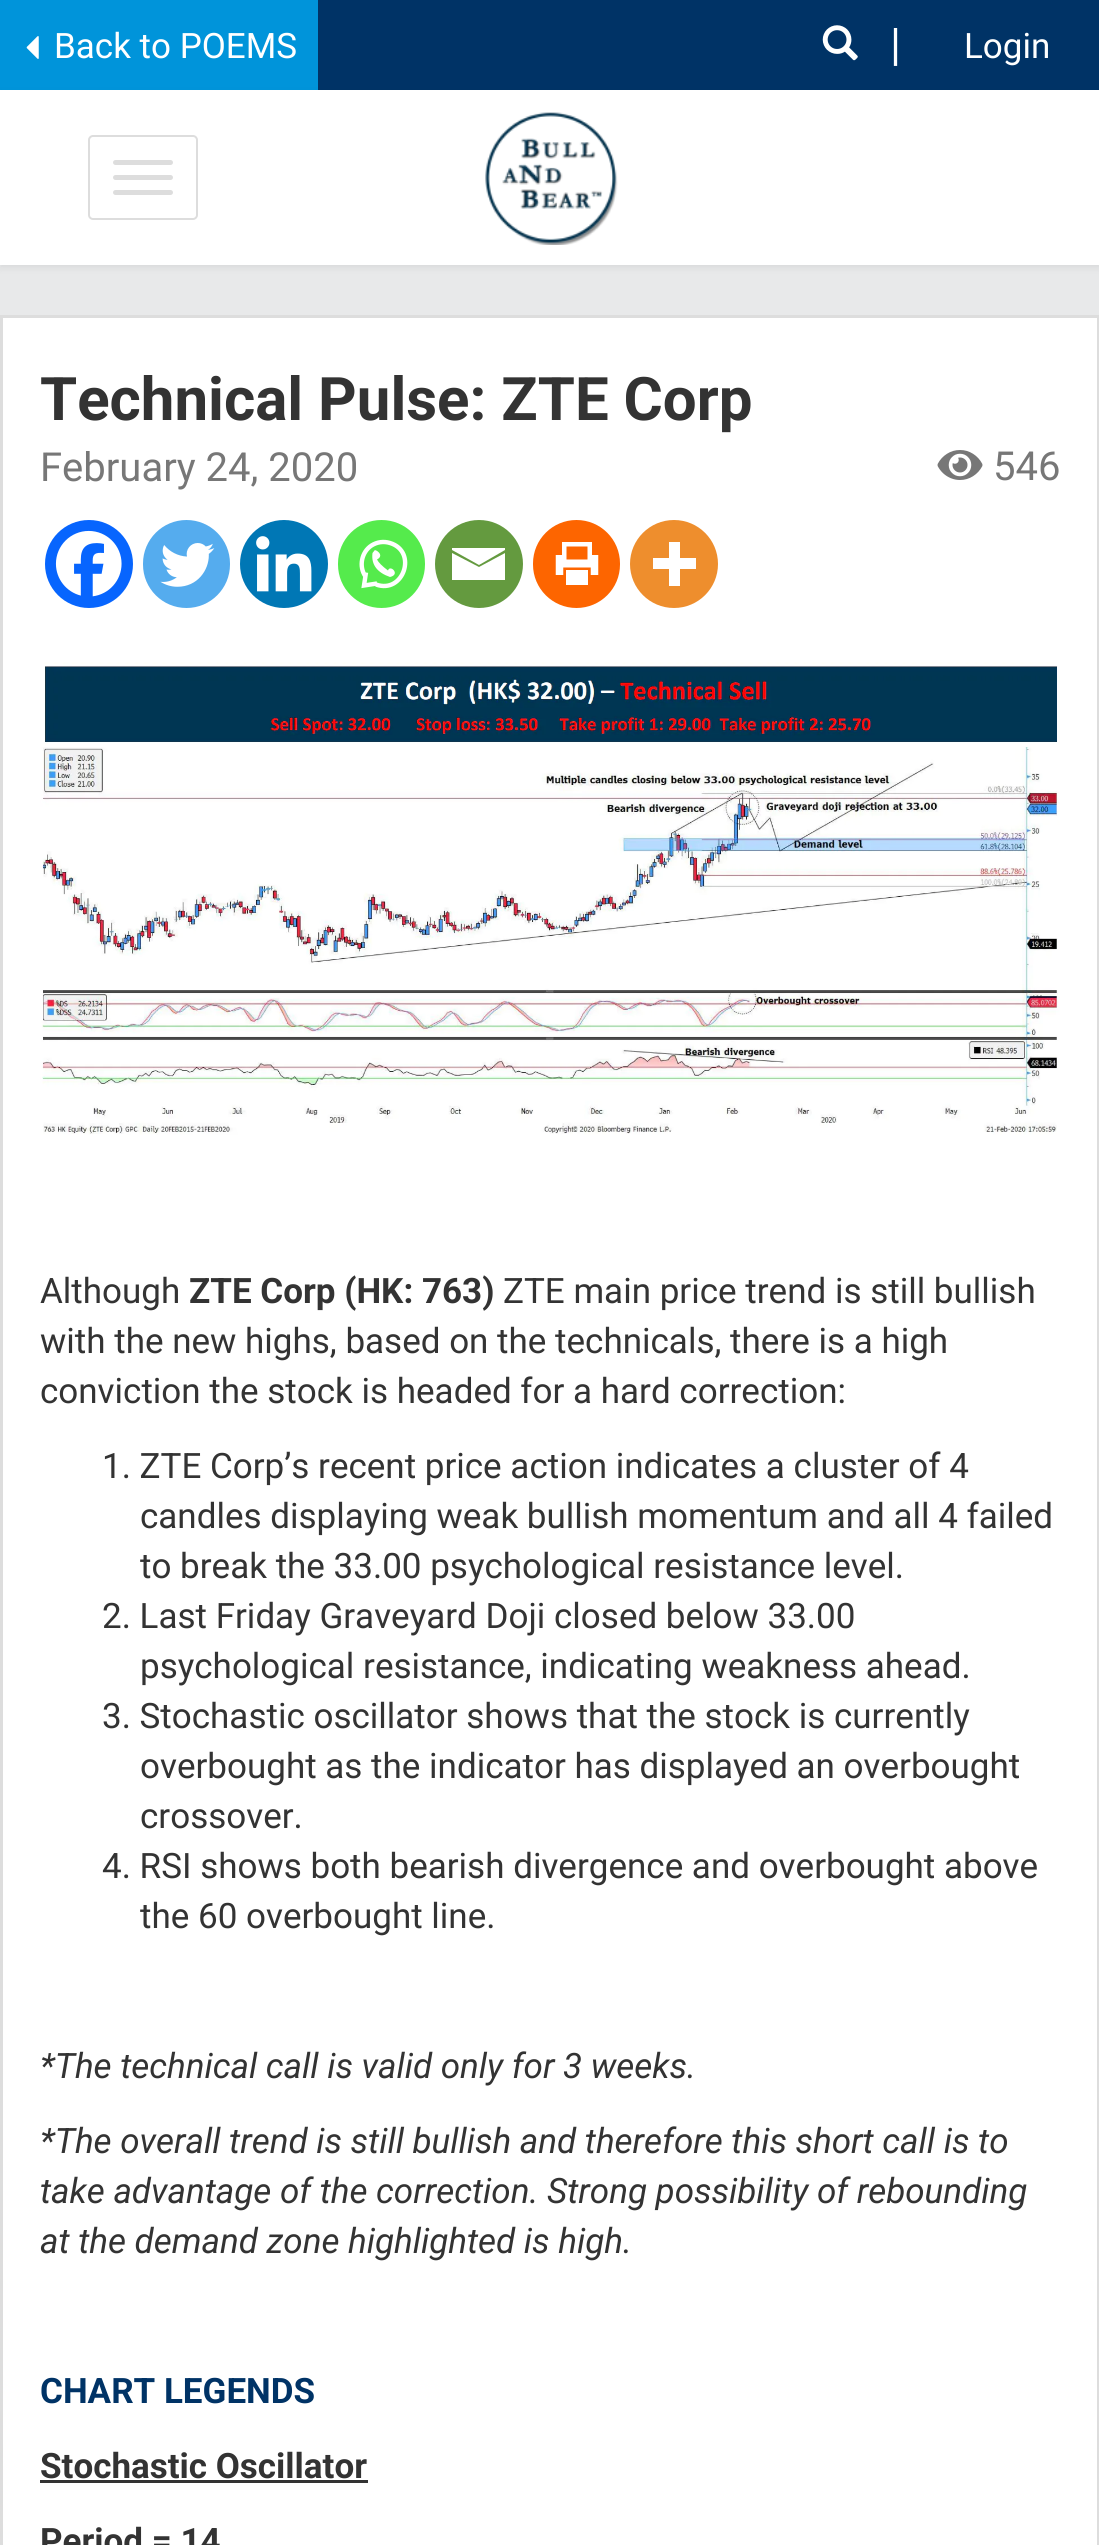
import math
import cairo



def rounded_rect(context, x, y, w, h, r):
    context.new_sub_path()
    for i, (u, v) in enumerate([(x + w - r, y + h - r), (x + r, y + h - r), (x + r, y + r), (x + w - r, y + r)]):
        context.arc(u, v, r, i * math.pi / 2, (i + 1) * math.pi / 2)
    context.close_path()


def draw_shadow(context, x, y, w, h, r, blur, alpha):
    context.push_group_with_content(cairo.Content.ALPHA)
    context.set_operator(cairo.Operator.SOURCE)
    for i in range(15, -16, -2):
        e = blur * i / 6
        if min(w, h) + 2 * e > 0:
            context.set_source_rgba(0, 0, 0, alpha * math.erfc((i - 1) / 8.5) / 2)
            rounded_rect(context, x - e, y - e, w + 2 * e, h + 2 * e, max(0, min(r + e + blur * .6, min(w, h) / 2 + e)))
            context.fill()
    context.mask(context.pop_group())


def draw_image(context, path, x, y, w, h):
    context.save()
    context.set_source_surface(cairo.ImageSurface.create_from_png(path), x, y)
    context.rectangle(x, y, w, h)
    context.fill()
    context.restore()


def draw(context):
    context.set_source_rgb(232 / 255, 233 / 255, 234 / 255)
    context.paint()
    context.set_source_rgb(0, 51 / 255, 102 / 255)
    context.rectangle(318, 0, 781, 90)
    context.fill()
    context.set_source_rgb(0, 148 / 255, 218 / 255)
    context.rectangle(0, 0, 318, 90)
    context.fill()
    draw_image(context, "images/1.png", 26, 36, 13, 23)
    draw_image(context, "images/2.png", 822, 25, 36, 36)
    context.set_source_rgb(0, 0, 0)
    draw_shadow(context, 0, 93, 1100, 175, 0, 4, 0.07)
    context.set_source_rgb(1, 1, 1)
    context.rectangle(0, 90, 1099, 175)
    context.fill()
    rounded_rect(context, 89, 136, 108, 83, 4)
    context.set_source_rgb(221 / 255, 221 / 255, 221 / 255)
    context.stroke()
    rounded_rect(context, 113, 160, 60, 5, 2.5)
    context.fill()
    rounded_rect(context, 113, 175, 60, 5, 2.5)
    context.fill()
    rounded_rect(context, 113, 190, 60, 5, 2.5)
    context.fill()
    draw_image(context, "images/3.png", 485, 112, 133, 133)
    context.set_source_rgb(1, 1, 1)
    context.rectangle(1.5, 316.5, 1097, 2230)
    context.fill_preserve()
    context.set_source_rgb(221 / 255, 221 / 255, 221 / 255)
    context.set_line_width(3)
    context.stroke()
    draw_image(context, "images/4.png", 937, 450, 46, 30)
    context.set_source_rgb(7 / 255, 101 / 255, 254 / 255)
    context.arc(89, 564, 44, 0, 2 * math.pi)
    context.fill()
    draw_image(context, "images/5.png", 55, 530, 67, 67)
    context.set_source_rgb(85 / 255, 172 / 255, 238 / 255)
    rounded_rect(context, 143, 520, 87, 88, 43.5)
    context.fill()
    draw_image(context, "images/6.png", 160, 543, 55, 44)
    context.set_source_rgb(0, 119 / 255, 181 / 255)
    context.arc(284, 564, 44, 0, 2 * math.pi)
    context.fill()
    draw_image(context, "images/7.png", 256, 536, 56, 56)
    context.set_source_rgb(85 / 255, 235 / 255, 76 / 255)
    rounded_rect(context, 338, 520, 87, 88, 43.5)
    context.fill()
    context.new_path()
    context.move_to(376, 584.5)
    context.curve_to(403.5, 594.5, 418, 551.5, 390, 543)
    context.curve_to(383.5, 541, 377, 542, 371.5, 545.5)
    context.curve_to(361.5, 552, 358.5, 566.5, 365.5, 576.5)
    context.move_to(366, 572.5)
    context.line_to(364, 585.5)
    context.line_to(377, 583.5)
    context.set_source_rgb(1, 1, 1)
    context.set_line_width(4.4)
    context.stroke()
    context.new_path()
    context.move_to(372.5, 553)
    context.curve_to(371, 564.5, 377, 572.5, 390, 577)
    context.curve_to(401, 574.5, 390, 564, 388, 570.5)
    context.curve_to(382, 566, 378.5, 562.5, 377, 559.5)
    context.curve_to(385.5, 555, 374.5, 548.5, 374.5, 550.5)
    context.fill()
    context.set_source_rgb(100 / 255, 154 / 255, 63 / 255)
    context.arc(479, 564, 44, 0, 2 * math.pi)
    context.fill()
    context.set_source_rgb(1, 1, 1)
    context.new_path()
    context.move_to(450, 548)
    context.line_to(505, 548)
    context.line_to(505, 550)
    context.line_to(479, 565)
    context.line_to(452, 550)
    context.line_to(452, 548)
    context.move_to(452, 553)
    context.line_to(479, 567)
    context.line_to(505, 553)
    context.line_to(505, 580)
    context.line_to(452, 580)
    context.line_to(452, 553)
    context.fill()
    context.set_source_rgb(253 / 255, 101 / 255, 0)
    rounded_rect(context, 533, 520, 87, 88, 43.5)
    context.fill()
    draw_image(context, "images/8.png", 555, 542, 44, 43)
    context.set_source_rgb(238 / 255, 142 / 255, 45 / 255)
    context.arc(674, 564, 44, 0, 2 * math.pi)
    context.fill()
    context.set_source_rgb(1, 1, 1)
    context.set_fill_rule(cairo.FillRule.EVEN_ODD)
    context.new_path()
    context.move_to(680, 558)
    context.line_to(680, 542)
    context.line_to(669, 542)
    context.line_to(669, 558)
    context.line_to(653, 558)
    context.line_to(653, 569)
    context.line_to(669, 569)
    context.line_to(669, 586)
    context.line_to(680, 586)
    context.line_to(680, 569)
    context.line_to(696, 569)
    context.line_to(696, 558)
    context.close_path()
    context.fill()
    draw_image(context, "images/9.png", 40, 662, 1020, 473)
    context.set_source_rgb(51 / 255, 51 / 255, 51 / 255)
    context.rectangle(40, 2480, 328, 3)
    context.fill()
    context.select_font_face("Roboto")
    context.set_font_size(35)
    context.set_source_rgb(1, 1, 1)
    context.move_to(54, 58)
    context.show_text("Back to POEMS")
    context.set_font_size(45)
    context.move_to(890, 60)
    context.show_text("|")
    context.set_font_size(35)
    context.move_to(964, 58)
    context.show_text("Login")
    context.select_font_face("Roboto", cairo.FontSlant.NORMAL, cairo.FontWeight.BOLD)
    context.set_font_size(60)
    context.set_source_rgb(51 / 255, 51 / 255, 51 / 255)
    context.move_to(40, 420)
    context.show_text("Technical Pulse: ZTE Corp")
    context.select_font_face("Roboto")
    context.set_font_size(40)
    context.set_source_rgb(119 / 255, 119 / 255, 119 / 255)
    context.move_to(40, 481)
    context.show_text("February 24, 2020")
    context.move_to(993, 480)
    context.show_text("546")
    context.set_font_size(35)
    context.set_source_rgb(51 / 255, 51 / 255, 51 / 255)
    context.move_to(40, 1303)
    context.show_text("Although")
    context.select_font_face("Roboto", cairo.FontSlant.NORMAL, cairo.FontWeight.BOLD)
    context.move_to(189, 1303)
    context.show_text("ZTE Corp (HK: 763)")
    context.select_font_face("Roboto")
    context.move_to(503, 1303)
    context.show_text("ZTE main price trend is still bullish")
    context.move_to(40, 1353)
    context.show_text("with the new highs, based on the technicals, there is a high")
    context.move_to(40, 1403)
    context.show_text("conviction the stock is headed for a hard correction:")
    context.move_to(102, 1478)
    context.show_text("1. ZTE Corp’s recent price action indicates a cluster of 4")
    context.move_to(140, 1528)
    context.show_text("candles displaying weak bullish momentum and all 4 failed")
    context.move_to(140, 1578)
    context.show_text("to break the 33.00 psychological resistance level.")
    context.move_to(102, 1628)
    context.show_text("2. Last Friday Graveyard Doji closed below 33.00")
    context.move_to(140, 1678)
    context.show_text("psychological resistance, indicating weakness ahead.")
    context.move_to(102, 1728)
    context.show_text("3. Stochastic oscillator shows that the stock is currently")
    context.move_to(140, 1778)
    context.show_text("overbought as the indicator has displayed an overbought")
    context.move_to(140, 1828)
    context.show_text("crossover.")
    context.move_to(102, 1878)
    context.show_text("4. RSI shows both bearish divergence and overbought above")
    context.move_to(140, 1928)
    context.show_text("the 60 overbought line.")
    context.select_font_face("Roboto", cairo.FontSlant.ITALIC)
    context.move_to(40, 2078)
    context.show_text("*The technical call is valid only for 3 weeks.")
    context.move_to(40, 2153)
    context.show_text("*The overall trend is still bullish and therefore this short call is to")
    context.move_to(40, 2203)
    context.show_text("take advantage of the correction. Strong possibility of rebounding")
    context.move_to(40, 2253)
    context.show_text("at the demand zone highlighted is high.")
    context.select_font_face("Roboto", cairo.FontSlant.NORMAL, cairo.FontWeight.BOLD)
    context.set_source_rgb(0, 51 / 255, 102 / 255)
    context.move_to(40, 2403)
    context.show_text("CHART LEGENDS")
    context.set_source_rgb(51 / 255, 51 / 255, 51 / 255)
    context.move_to(40, 2478)
    context.show_text("Stochastic Oscillator")
    context.move_to(40, 2553)
    context.show_text("Period = 14")


surface = cairo.ImageSurface(cairo.Format.RGB24, 1099, 2545)
context = cairo.Context(surface)
options = cairo.FontOptions()
options.set_hint_metrics(cairo.HintMetrics.OFF)
options.set_hint_style(cairo.HintStyle.NONE)
context.set_font_options(options)
context.set_miter_limit(4)
draw(context)
surface.write_to_png("out.png")
